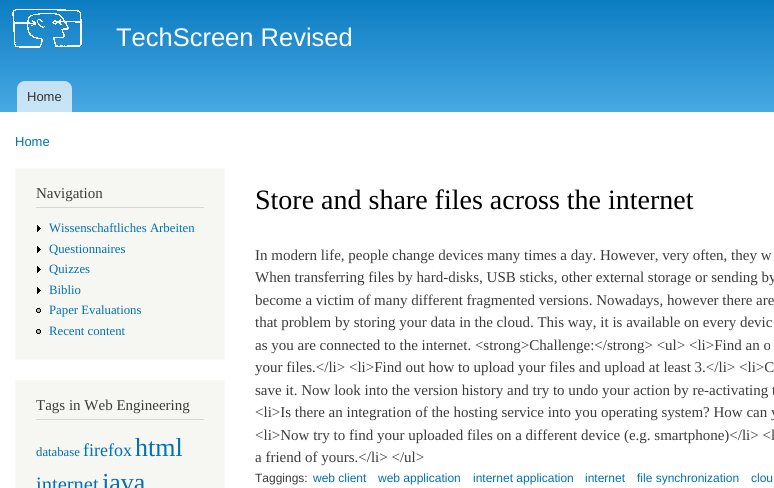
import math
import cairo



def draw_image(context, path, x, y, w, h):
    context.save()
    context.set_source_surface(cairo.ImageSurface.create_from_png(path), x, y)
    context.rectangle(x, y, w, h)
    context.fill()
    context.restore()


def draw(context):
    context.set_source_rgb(1, 1, 1)
    context.paint()
    gradient = cairo.LinearGradient(480, -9, 480, 112)
    gradient.add_color_stop_rgba(0, 7 / 255, 121 / 255, 191 / 255, 1)
    gradient.add_color_stop_rgba(1, 72 / 255, 169 / 255, 228 / 255, 1)
    context.set_source(gradient)
    context.rectangle(0, 0, 774, 112)
    context.fill()
    draw_image(context, "images/1.png", 12, 9, 70, 39)
    context.set_source_rgba(1, 1, 1, 0.7)
    context.new_path()
    context.move_to(25, 81)
    context.line_to(64, 81)
    context.curve_to(68.5, 81, 72, 84.5, 72, 89)
    context.line_to(72, 112)
    context.line_to(17, 112)
    context.line_to(17, 89)
    context.curve_to(17, 84.5, 20.5, 81, 25, 81)
    context.close_path()
    context.fill()
    context.set_source_rgb(246 / 255, 246 / 255, 242 / 255)
    context.rectangle(15.5, 168.5, 209, 191)
    context.fill_preserve()
    context.set_source_rgb(249 / 255, 249 / 255, 249 / 255)
    context.set_line_width(1)
    context.stroke()
    context.set_source_rgb(214 / 255, 214 / 255, 214 / 255)
    context.rectangle(36, 207, 168, 1)
    context.fill()
    draw_image(context, "images/2.png", 37, 225, 4, 7)
    draw_image(context, "images/2.png", 37, 246, 4, 7)
    draw_image(context, "images/2.png", 37, 266, 4, 7)
    draw_image(context, "images/2.png", 37, 287, 4, 7)
    draw_image(context, "images/3.png", 36, 308, 5, 5)
    draw_image(context, "images/3.png", 36, 329, 5, 5)
    context.set_source_rgb(246 / 255, 246 / 255, 242 / 255)
    context.rectangle(15.5, 380.5, 209, 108)
    context.fill_preserve()
    context.set_source_rgb(249 / 255, 249 / 255, 249 / 255)
    context.stroke()
    context.set_source_rgb(214 / 255, 214 / 255, 214 / 255)
    context.rectangle(36, 419, 168, 1)
    context.fill()
    context.select_font_face("Liberation Sans")
    context.set_font_size(25.5)
    context.set_source_rgb(1, 254 / 255, 1)
    context.move_to(116, 46)
    context.show_text("TechScreen Revised")
    context.set_font_size(13)
    context.set_source_rgb(51 / 255, 51 / 255, 51 / 255)
    context.move_to(27, 101)
    context.show_text("Home")
    context.set_source_rgb(0, 113 / 255, 179 / 255)
    context.move_to(15, 146)
    context.show_text("Home")
    context.select_font_face("Liberation Serif")
    context.set_font_size(15)
    context.set_source_rgb(59 / 255, 59 / 255, 59 / 255)
    context.move_to(36, 198)
    context.show_text("Navigation")
    context.set_font_size(12.75)
    context.set_source_rgb(0, 113 / 255, 179 / 255)
    context.move_to(49, 232)
    context.show_text("Wissenschaftliches Arbeiten")
    context.move_to(49, 253)
    context.show_text("Questionnaires")
    context.move_to(49, 273)
    context.show_text("Quizzes")
    context.move_to(49, 294)
    context.show_text("Biblio")
    context.move_to(49, 314)
    context.show_text("Paper Evaluations")
    context.move_to(49, 335)
    context.show_text("Recent content")
    context.set_font_size(15)
    context.set_source_rgb(59 / 255, 59 / 255, 59 / 255)
    context.move_to(36, 410)
    context.show_text("Tags in Web Engineering")
    context.set_font_size(12.75)
    context.set_source_rgb(0, 113 / 255, 179 / 255)
    context.move_to(36, 456)
    context.show_text("database")
    context.set_font_size(18)
    context.move_to(83, 456)
    context.show_text("firefox")
    context.set_font_size(26)
    context.move_to(135, 456)
    context.show_text("html")
    context.set_font_size(20.5)
    context.move_to(36, 491)
    context.show_text("internet")
    context.set_font_size(26)
    context.move_to(102, 491)
    context.show_text("java")
    context.set_font_size(28)
    context.set_source_rgb(0, 0, 0)
    context.move_to(255, 209)
    context.show_text("Store and share files across the internet")
    context.set_font_size(15)
    context.set_source_rgb(59 / 255, 59 / 255, 59 / 255)
    context.move_to(255, 260)
    context.show_text("In modern life, people change devices many times a day. However, very often, they w")
    context.move_to(255, 282)
    context.show_text("When transferring files by hard-disks, USB sticks, other external storage or sending by")
    context.move_to(255, 305)
    context.show_text("become a victim of many different fragmented versions. Nowadays, however there are")
    context.move_to(255, 327)
    context.show_text("that problem by storing your data in the cloud. This way, it is available on every devic")
    context.move_to(255, 350)
    context.show_text("as you are connected to the internet. <strong>Challenge:</strong> <ul> <li>Find an o")
    context.move_to(255, 372)
    context.show_text("your files.</li> <li>Find out how to upload your files and upload at least 3.</li> <li>C")
    context.move_to(255, 395)
    context.show_text("save it. Now look into the version history and try to undo your action by re-activating t")
    context.move_to(255, 417)
    context.show_text("<li>Is there an integration of the hosting service into you operating system? How can y")
    context.move_to(255, 440)
    context.show_text("<li>Now try to find your uploaded files on a different device (e.g. smartphone)</li> <l")
    context.move_to(255, 462)
    context.show_text("a friend of yours.</li> </ul>")
    context.select_font_face("Liberation Sans")
    context.set_font_size(12)
    context.move_to(255, 482)
    context.show_text("Taggings:")
    context.set_source_rgb(0, 113 / 255, 179 / 255)
    context.move_to(313, 482)
    context.show_text("web client")
    context.move_to(378, 482)
    context.show_text("web application")
    context.move_to(473, 482)
    context.show_text("internet application")
    context.move_to(585, 482)
    context.show_text("internet")
    context.move_to(637, 482)
    context.show_text("file synchronization")
    context.move_to(751, 482)
    context.show_text("clou")


surface = cairo.ImageSurface(cairo.Format.RGB24, 774, 488)
context = cairo.Context(surface)
options = cairo.FontOptions()
options.set_hint_metrics(cairo.HintMetrics.OFF)
options.set_hint_style(cairo.HintStyle.NONE)
context.set_font_options(options)
context.set_miter_limit(4)
draw(context)
surface.write_to_png("out.png")
